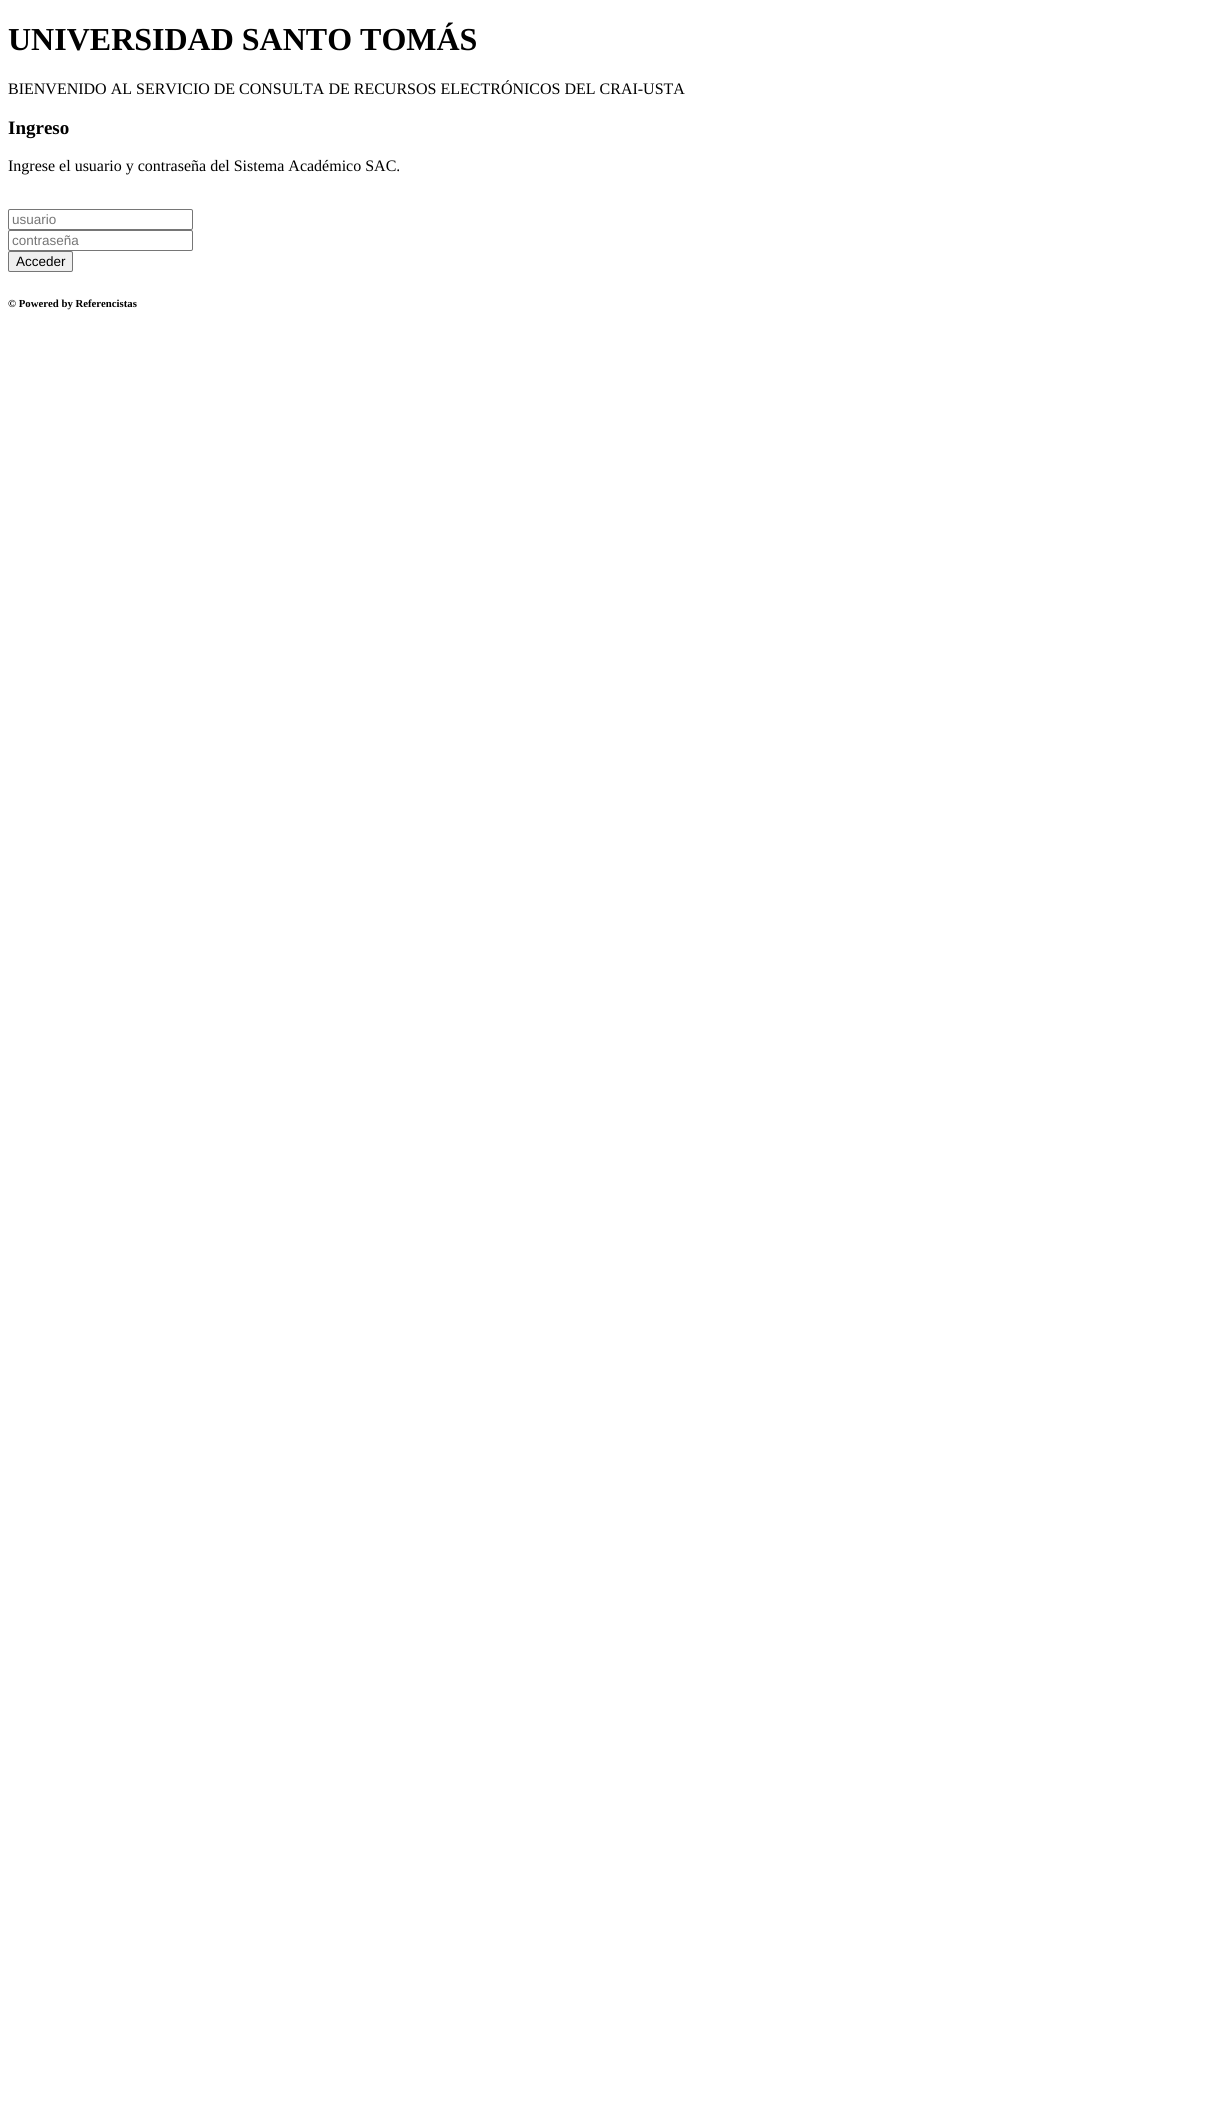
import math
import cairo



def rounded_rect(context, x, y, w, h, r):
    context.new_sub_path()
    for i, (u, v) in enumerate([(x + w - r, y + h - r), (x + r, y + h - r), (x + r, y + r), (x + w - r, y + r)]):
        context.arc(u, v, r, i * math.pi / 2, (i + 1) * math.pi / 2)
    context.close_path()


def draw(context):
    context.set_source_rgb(1, 1, 1)
    context.paint()
    rounded_rect(context, 8.5, 209.5, 184, 20, 1.5)
    context.set_source_rgb(118 / 255, 118 / 255, 118 / 255)
    context.set_line_width(1)
    context.stroke()
    rounded_rect(context, 8.5, 230.5, 184, 20, 1.5)
    context.stroke()
    context.set_source_rgb(239 / 255, 239 / 255, 239 / 255)
    rounded_rect(context, 8.5, 251.5, 64, 20, 1.5)
    context.fill_preserve()
    context.set_source_rgb(118 / 255, 118 / 255, 118 / 255)
    context.stroke()
    context.select_font_face("Liberation Serif", cairo.FontSlant.NORMAL, cairo.FontWeight.BOLD)
    context.set_font_size(32)
    context.set_source_rgb(0, 0, 0)
    context.move_to(8, 50)
    context.show_text("UNIVERSIDAD SANTO TOMÁS")
    context.select_font_face("Liberation Serif")
    context.set_font_size(16)
    context.move_to(8, 94)
    context.show_text("BIENVENIDO AL SERVICIO DE CONSULTA DE RECURSOS ELECTRÓNICOS DEL CRAI-USTA")
    context.select_font_face("Liberation Serif", cairo.FontSlant.NORMAL, cairo.FontWeight.BOLD)
    context.set_font_size(19)
    context.move_to(8, 134)
    context.show_text("Ingreso")
    context.select_font_face("Liberation Serif")
    context.set_font_size(16)
    context.move_to(8, 171)
    context.show_text("Ingrese el usuario y contraseña del Sistema Académico SAC.")
    context.select_font_face("Liberation Sans")
    context.set_font_size(13.5)
    context.set_source_rgb(117 / 255, 117 / 255, 117 / 255)
    context.move_to(12, 224)
    context.show_text("usuario")
    context.move_to(12, 245)
    context.show_text("contraseña")
    context.set_source_rgb(0, 0, 0)
    context.move_to(16, 266)
    context.show_text("Acceder")
    context.select_font_face("Liberation Serif", cairo.FontSlant.NORMAL, cairo.FontWeight.BOLD)
    context.set_font_size(10.75)
    context.move_to(8, 307)
    context.show_text("© Powered by Referencistas")


surface = cairo.ImageSurface(cairo.Format.RGB24, 1213, 2126)
context = cairo.Context(surface)
options = cairo.FontOptions()
options.set_hint_metrics(cairo.HintMetrics.OFF)
options.set_hint_style(cairo.HintStyle.NONE)
context.set_font_options(options)
context.set_miter_limit(4)
draw(context)
surface.write_to_png("out.png")
